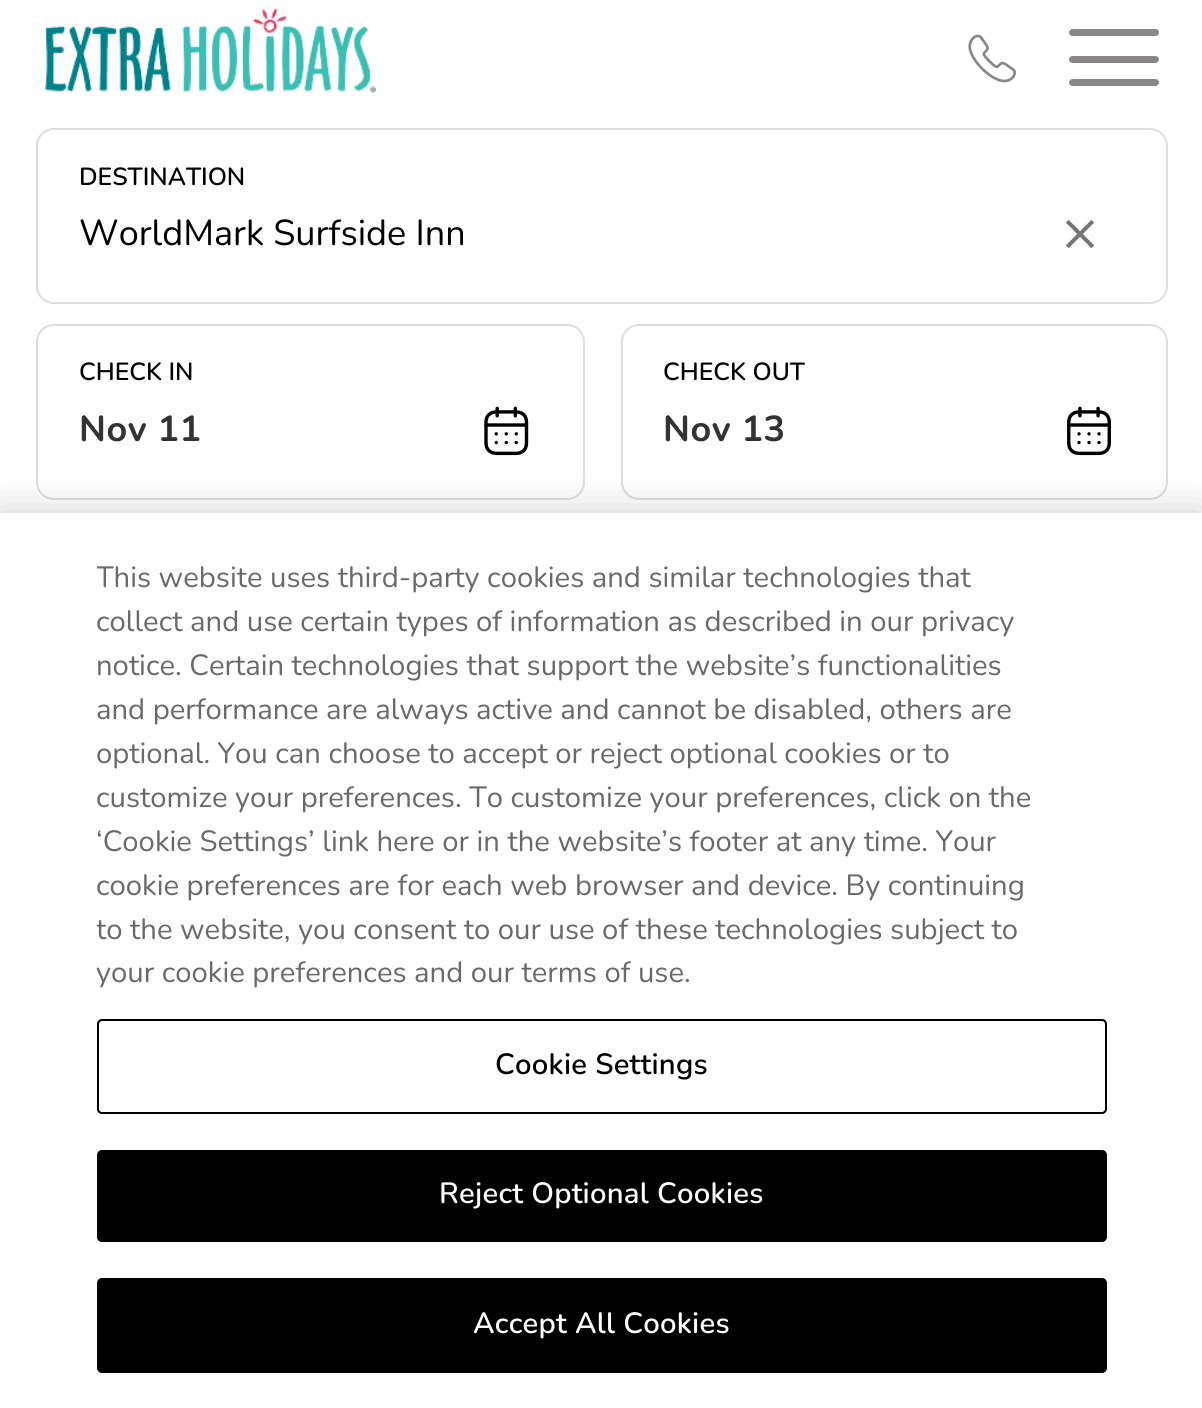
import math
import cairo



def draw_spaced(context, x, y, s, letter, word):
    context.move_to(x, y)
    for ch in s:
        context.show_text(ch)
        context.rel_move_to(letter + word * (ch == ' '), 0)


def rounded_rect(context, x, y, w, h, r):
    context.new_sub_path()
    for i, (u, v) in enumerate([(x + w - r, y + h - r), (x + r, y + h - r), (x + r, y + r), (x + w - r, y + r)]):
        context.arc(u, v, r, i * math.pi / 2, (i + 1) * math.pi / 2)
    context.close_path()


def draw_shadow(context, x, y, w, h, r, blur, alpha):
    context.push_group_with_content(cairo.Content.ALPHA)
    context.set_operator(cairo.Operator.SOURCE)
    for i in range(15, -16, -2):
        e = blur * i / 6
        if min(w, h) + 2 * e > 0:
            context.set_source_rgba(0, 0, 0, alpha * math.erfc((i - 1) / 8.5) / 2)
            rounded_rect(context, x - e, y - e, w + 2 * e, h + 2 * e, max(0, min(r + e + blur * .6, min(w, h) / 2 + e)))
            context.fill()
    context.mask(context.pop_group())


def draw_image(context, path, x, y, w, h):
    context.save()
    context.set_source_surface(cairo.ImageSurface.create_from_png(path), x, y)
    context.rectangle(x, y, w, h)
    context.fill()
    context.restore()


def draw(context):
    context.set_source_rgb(1, 1, 1)
    context.paint()
    draw_image(context, "images/1.png", 45, 9, 331, 84)
    draw_image(context, "images/2.png", 968, 34, 48, 49)
    context.set_source_rgb(137 / 255, 135 / 255, 135 / 255)
    rounded_rect(context, 1069, 29, 90, 7, 3.5)
    context.fill()
    rounded_rect(context, 1069, 56, 90, 7, 3.5)
    context.fill()
    rounded_rect(context, 1069, 79, 90, 7, 3.5)
    context.fill()
    rounded_rect(context, 37, 129, 1130, 174, 17)
    context.set_source_rgb(222 / 255, 222 / 255, 222 / 255)
    context.stroke()
    draw_image(context, "images/3.png", 1065, 219, 30, 30)
    rounded_rect(context, 37, 325, 547, 174, 17)
    context.stroke()
    draw_image(context, "images/4.png", 484, 406, 45, 50)
    rounded_rect(context, 622, 325, 545, 174, 17)
    context.stroke()
    draw_image(context, "images/5.png", 1067, 406, 44, 50)
    context.set_source_rgb(0, 0, 0)
    draw_shadow(context, 0, 513, 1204, 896, 0, 20, 0.2)
    context.set_source_rgb(1, 1, 1)
    context.rectangle(0, 513, 1202, 895)
    context.fill()
    rounded_rect(context, 98, 1020, 1008, 93, 4)
    context.set_source_rgb(0, 0, 0)
    context.stroke()
    rounded_rect(context, 98, 1151, 1008, 90, 4)
    context.fill_preserve()
    context.stroke()
    rounded_rect(context, 98, 1279, 1008, 93, 4)
    context.fill_preserve()
    context.stroke()
    context.select_font_face("Nunito SemiBold")
    context.set_font_size(24.75)
    context.move_to(79, 185)
    context.show_text("DESTINATION")
    context.select_font_face("Nunito")
    context.set_font_size(36)
    context.move_to(79, 245)
    context.show_text("WorldMark Surfside Inn")
    context.select_font_face("Nunito SemiBold")
    context.set_font_size(24.75)
    context.move_to(79, 380)
    context.show_text("CHECK IN")
    context.select_font_face("Nunito", cairo.FontSlant.NORMAL, cairo.FontWeight.BOLD)
    context.set_font_size(36)
    context.set_source_rgb(51 / 255, 51 / 255, 51 / 255)
    draw_spaced(context, 79, 441, "Nov 11", 0.5, 0)
    context.select_font_face("Nunito SemiBold")
    context.set_font_size(24.75)
    context.set_source_rgb(0, 0, 0)
    context.move_to(663, 380)
    context.show_text("CHECK OUT")
    context.select_font_face("Nunito", cairo.FontSlant.NORMAL, cairo.FontWeight.BOLD)
    context.set_font_size(36)
    context.set_source_rgb(51 / 255, 51 / 255, 51 / 255)
    draw_spaced(context, 663, 441, "Nov 13", 0.5, 0)
    context.save()
    context.rectangle(97, 558, 956, 439)
    context.clip()
    context.select_font_face("Nunito")
    context.set_font_size(29.25)
    context.set_source_rgb(105 / 255, 105 / 255, 105 / 255)
    context.move_to(96, 587)
    context.show_text("This website uses third-party cookies and similar technologies that")
    context.restore()
    context.select_font_face("Nunito")
    context.set_font_size(29.25)
    context.set_source_rgb(105 / 255, 105 / 255, 105 / 255)
    context.move_to(96, 631)
    context.show_text("collect and use certain types of information as described in our privacy")
    context.move_to(96, 675)
    context.show_text("notice. Certain technologies that support the website’s functionalities")
    context.move_to(96, 719)
    context.show_text("and performance are always active and cannot be disabled, others are")
    context.move_to(96, 763)
    context.show_text("optional. You can choose to accept or reject optional cookies or to")
    context.move_to(96, 807)
    context.show_text("customize your preferences. To customize your preferences, click on the")
    context.move_to(96, 851)
    context.show_text("‘Cookie Settings’ link here or in the website’s footer at any time. Your")
    context.move_to(96, 895)
    context.show_text("cookie preferences are for each web browser and device. By continuing")
    context.save()
    context.rectangle(97, 558, 956, 439)
    context.clip()
    context.move_to(96, 939)
    context.show_text("to the website, you consent to our use of these technologies subject to")
    context.restore()
    context.move_to(96, 982)
    context.show_text("your cookie preferences and our terms of use.")
    context.select_font_face("Nunito SemiBold")
    context.set_source_rgb(0, 0, 0)
    draw_spaced(context, 495, 1074, "Cookie Settings", 0.25, 0)
    context.set_source_rgb(1, 1, 1)
    draw_spaced(context, 439, 1203, "Reject Optional Cookies", 0.25, 0)
    draw_spaced(context, 473, 1333, "Accept All Cookies", 0.25, 0)


surface = cairo.ImageSurface(cairo.Format.RGB24, 1202, 1408)
context = cairo.Context(surface)
options = cairo.FontOptions()
options.set_hint_metrics(cairo.HintMetrics.OFF)
options.set_hint_style(cairo.HintStyle.NONE)
context.set_font_options(options)
context.set_miter_limit(4)
draw(context)
surface.write_to_png("out.png")
